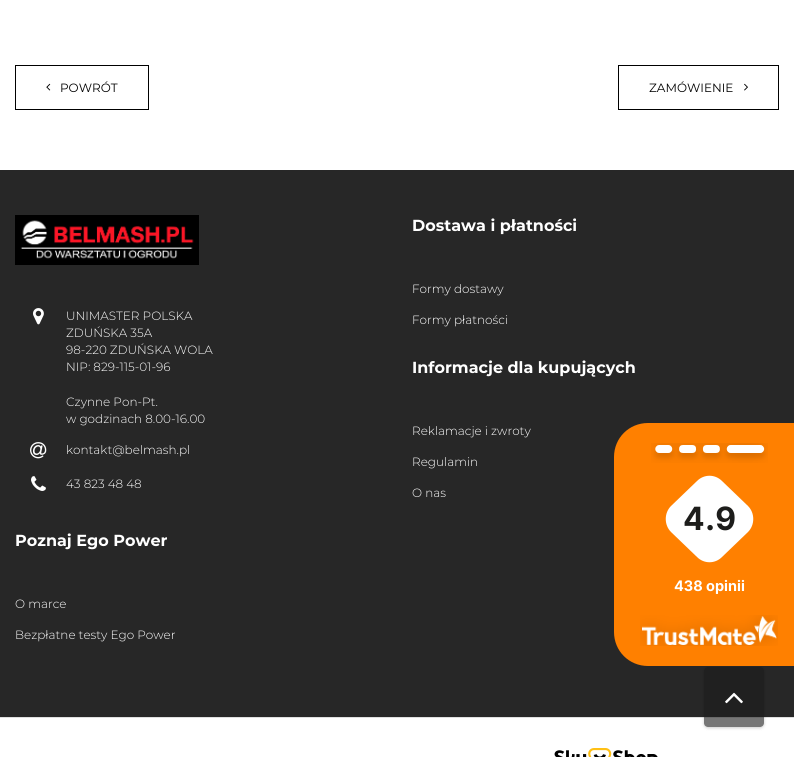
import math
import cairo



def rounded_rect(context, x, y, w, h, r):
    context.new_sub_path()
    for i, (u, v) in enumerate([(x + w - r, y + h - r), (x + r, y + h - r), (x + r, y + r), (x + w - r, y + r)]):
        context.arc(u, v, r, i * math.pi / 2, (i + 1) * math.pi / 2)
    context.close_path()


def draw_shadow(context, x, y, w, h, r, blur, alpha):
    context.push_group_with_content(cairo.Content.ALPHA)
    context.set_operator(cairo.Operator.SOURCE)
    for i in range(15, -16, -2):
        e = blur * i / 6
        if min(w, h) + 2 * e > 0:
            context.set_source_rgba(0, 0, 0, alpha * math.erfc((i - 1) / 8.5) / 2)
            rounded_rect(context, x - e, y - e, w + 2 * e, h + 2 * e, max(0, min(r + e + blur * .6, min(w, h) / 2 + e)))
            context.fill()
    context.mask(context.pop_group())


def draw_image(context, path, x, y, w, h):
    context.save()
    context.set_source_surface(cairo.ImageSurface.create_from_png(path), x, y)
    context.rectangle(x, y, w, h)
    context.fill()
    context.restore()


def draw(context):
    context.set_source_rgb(1, 1, 1)
    context.paint()
    context.rectangle(15.5, 65.5, 133, 44)
    context.set_source_rgb(0, 0, 0)
    context.set_line_width(1)
    context.stroke()
    draw_image(context, "images/1.png", 46, 83, 5, 8)
    context.rectangle(618.5, 65.5, 160, 44)
    context.stroke()
    draw_image(context, "images/2.png", 744, 83, 4, 8)
    context.set_source_rgb(39 / 255, 39 / 255, 39 / 255)
    context.rectangle(0, 170, 794, 547)
    context.fill()
    draw_image(context, "images/3.png", 15, 215, 184, 50)
    draw_image(context, "images/4.png", 33, 308, 11, 17)
    draw_image(context, "images/5.png", 30, 442, 17, 17)
    draw_image(context, "images/6.png", 31, 476, 15, 15)
    context.set_source_rgb(223 / 255, 223 / 255, 223 / 255)
    context.rectangle(0, 717, 794, 1)
    context.fill()
    draw_image(context, "images/7.png", 554, 748, 104, 9)
    context.save()
    context.set_fill_rule(cairo.FillRule.EVEN_ODD)
    context.new_path()
    context.move_to(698, 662)
    context.line_to(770, 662)
    context.line_to(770, 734)
    context.line_to(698, 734)
    context.close_path()
    context.move_to(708, 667)
    context.line_to(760, 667)
    context.curve_to(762, 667, 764, 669, 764, 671)
    context.line_to(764, 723)
    context.curve_to(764, 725, 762, 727, 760, 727)
    context.line_to(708, 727)
    context.curve_to(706, 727, 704, 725, 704, 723)
    context.line_to(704, 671)
    context.curve_to(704, 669, 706, 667, 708, 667)
    context.close_path()
    context.clip()
    context.set_source_rgb(0, 0, 0)
    draw_shadow(context, 704, 668, 60, 60, 4, 1.5, 0.2)
    context.restore()
    context.set_source_rgb(1, 128 / 255, 0)
    context.new_path()
    context.move_to(648, 423)
    context.line_to(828, 423)
    context.line_to(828, 666)
    context.line_to(648, 666)
    context.curve_to(629, 666, 614, 651, 614, 632)
    context.line_to(614, 457)
    context.curve_to(614, 438, 629, 423, 648, 423)
    context.close_path()
    context.fill()
    draw_image(context, "images/8.png", 651, 443, 117, 20)
    context.set_source_rgb(1, 1, 1)
    context.new_path()
    context.move_to(722, 481)
    context.line_to(748, 506)
    context.curve_to(755, 513, 755, 525, 748, 532)
    context.line_to(722, 557)
    context.curve_to(715, 564, 704, 564, 697, 557)
    context.line_to(671, 532)
    context.curve_to(664, 525, 664, 513, 671, 506)
    context.line_to(697, 481)
    context.curve_to(704, 474, 715, 474, 722, 481)
    context.close_path()
    context.fill()
    draw_image(context, "images/9.png", 640, 615, 138, 31)
    context.set_source_rgba(28 / 255, 28 / 255, 28 / 255, 0.6)
    rounded_rect(context, 704, 667, 60, 60, 4)
    context.fill()
    draw_image(context, "images/10.png", 725, 692, 18, 12)
    context.select_font_face("Montserrat")
    context.set_font_size(12)
    context.set_source_rgb(0, 0, 0)
    context.move_to(60, 92)
    context.show_text("POWRÓT")
    context.move_to(649, 92)
    context.show_text("ZAMÓWIENIE")
    context.select_font_face("Montserrat", cairo.FontSlant.NORMAL, cairo.FontWeight.BOLD)
    context.set_font_size(16)
    context.set_source_rgb(1, 1, 1)
    context.move_to(412, 231)
    context.show_text("Dostawa i płatności")
    context.select_font_face("Montserrat Light")
    context.set_font_size(12)
    context.move_to(412, 293)
    context.show_text("Formy dostawy")
    context.move_to(412, 324)
    context.show_text("Formy płatności")
    context.move_to(66, 320)
    context.show_text("UNIMASTER POLSKA")
    context.move_to(66, 337)
    context.show_text("ZDUŃSKA 35A")
    context.move_to(66, 354)
    context.show_text("98-220 ZDUŃSKA WOLA")
    context.move_to(66, 371)
    context.show_text("NIP: 829-115-01-96")
    context.move_to(66, 406)
    context.show_text("Czynne Pon-Pt.")
    context.move_to(66, 423)
    context.show_text("w godzinach 8.00-16.00")
    context.move_to(66, 454)
    context.show_text("kontakt@belmash.pl")
    context.move_to(66, 488)
    context.show_text("43 823 48 48")
    context.select_font_face("Montserrat", cairo.FontSlant.NORMAL, cairo.FontWeight.BOLD)
    context.set_font_size(16)
    context.move_to(412, 373)
    context.show_text("Informacje dla kupujących")
    context.select_font_face("Montserrat Light")
    context.set_font_size(12)
    context.move_to(412, 435)
    context.show_text("Reklamacje i zwroty")
    context.move_to(412, 466)
    context.show_text("Regulamin")
    context.move_to(412, 497)
    context.show_text("O nas")
    context.select_font_face("Montserrat", cairo.FontSlant.NORMAL, cairo.FontWeight.BOLD)
    context.set_font_size(16)
    context.move_to(15, 546)
    context.show_text("Poznaj Ego Power")
    context.select_font_face("Montserrat Light")
    context.set_font_size(12)
    context.move_to(15, 608)
    context.show_text("O marce")
    context.move_to(15, 639)
    context.show_text("Bezpłatne testy Ego Power")
    context.select_font_face("Inter", cairo.FontSlant.NORMAL, cairo.FontWeight.BOLD)
    context.set_font_size(32)
    context.set_source_rgb(29 / 255, 29 / 255, 27 / 255)
    context.move_to(683, 530)
    context.show_text("4.9")
    context.set_font_size(14.5)
    context.set_source_rgb(1, 1, 1)
    context.move_to(674, 591)
    context.show_text("438 opinii")


surface = cairo.ImageSurface(cairo.Format.RGB24, 794, 757)
context = cairo.Context(surface)
options = cairo.FontOptions()
options.set_hint_metrics(cairo.HintMetrics.OFF)
options.set_hint_style(cairo.HintStyle.NONE)
context.set_font_options(options)
context.set_miter_limit(4)
draw(context)
surface.write_to_png("out.png")
